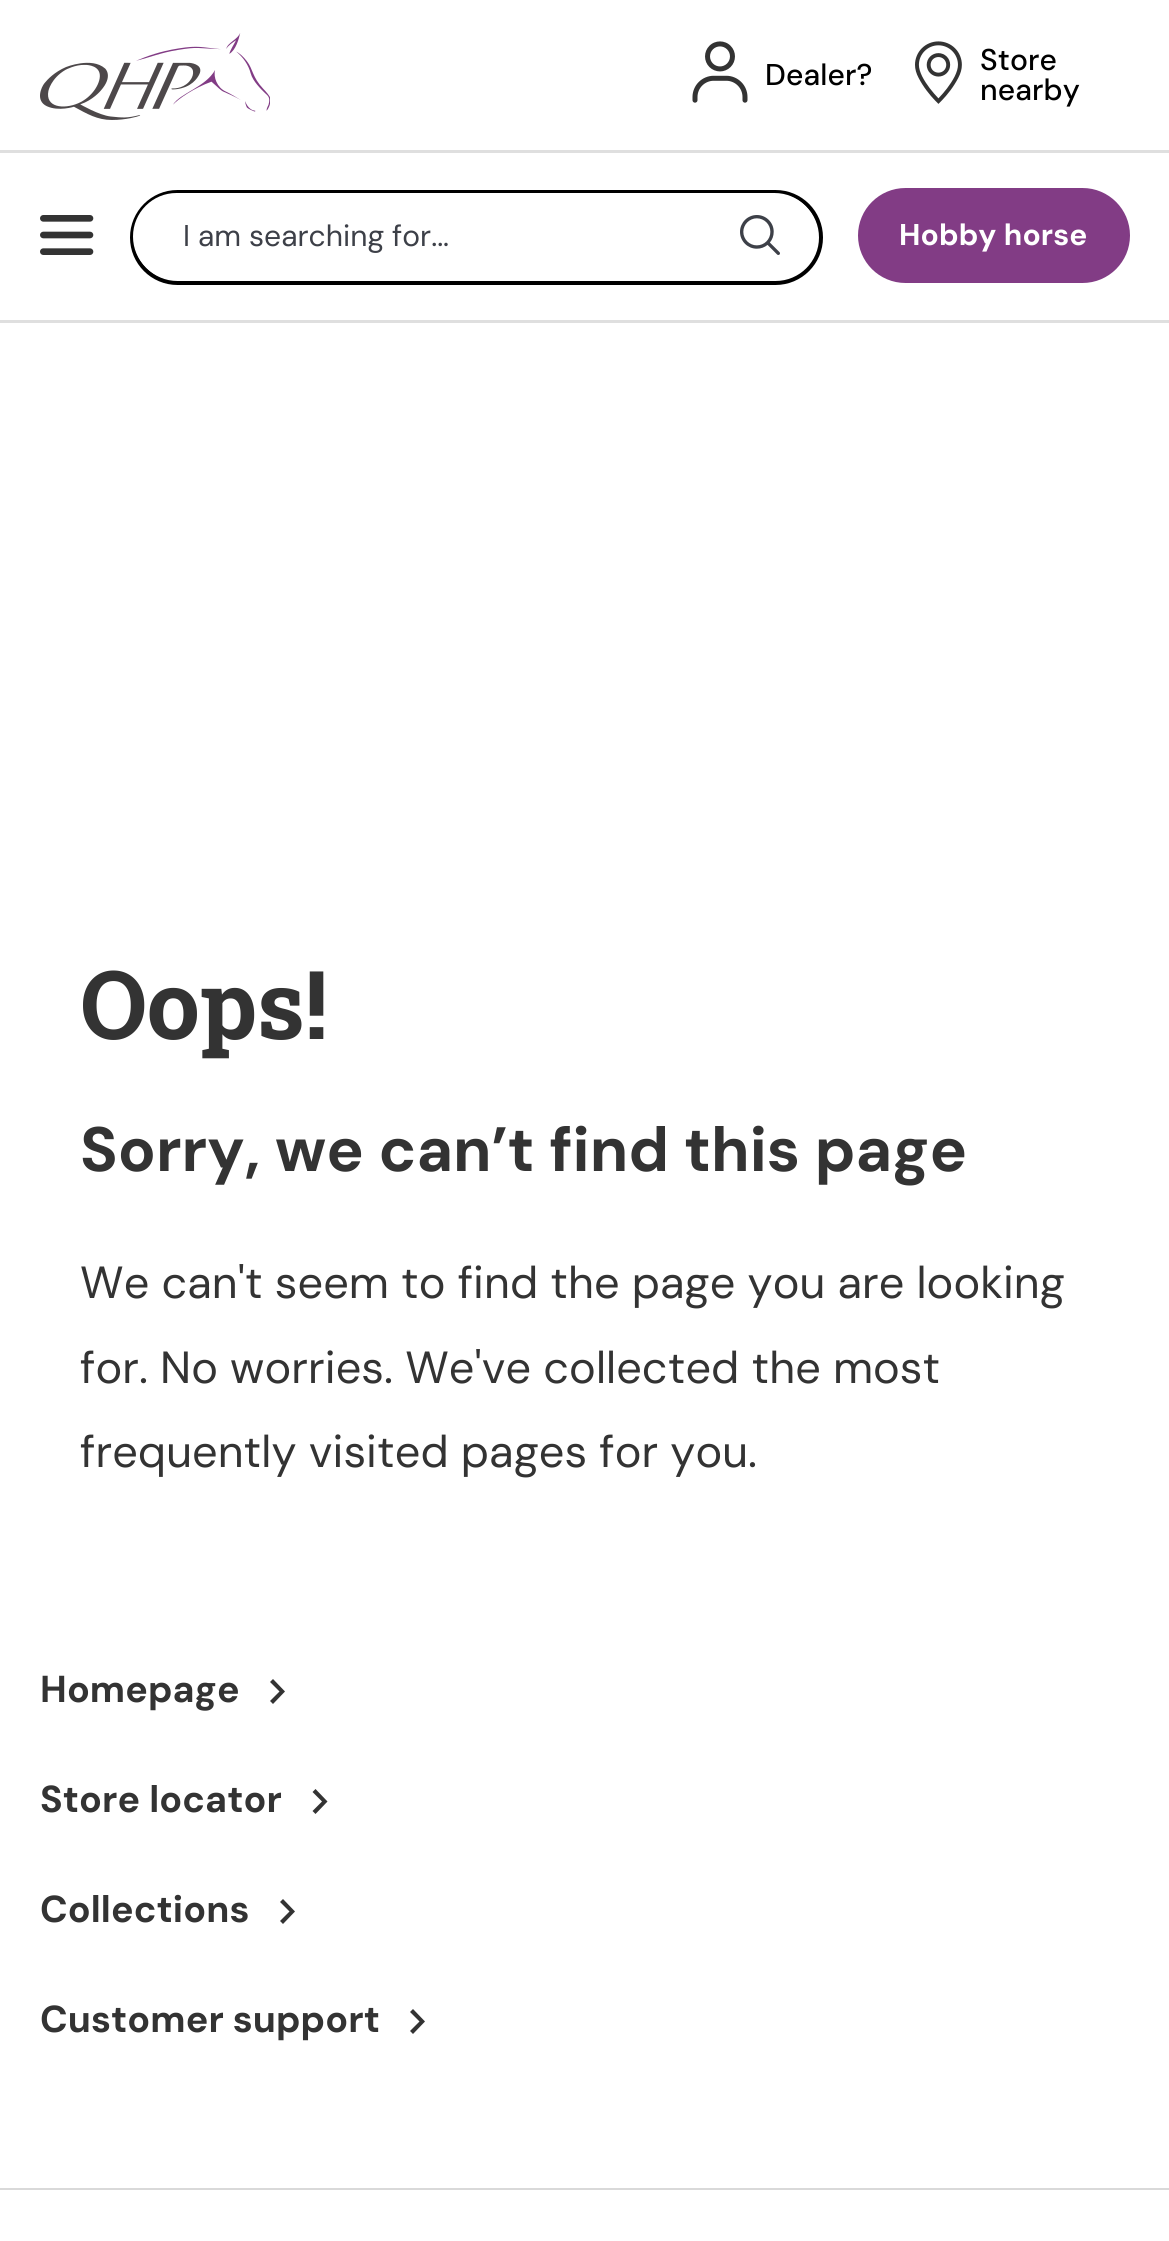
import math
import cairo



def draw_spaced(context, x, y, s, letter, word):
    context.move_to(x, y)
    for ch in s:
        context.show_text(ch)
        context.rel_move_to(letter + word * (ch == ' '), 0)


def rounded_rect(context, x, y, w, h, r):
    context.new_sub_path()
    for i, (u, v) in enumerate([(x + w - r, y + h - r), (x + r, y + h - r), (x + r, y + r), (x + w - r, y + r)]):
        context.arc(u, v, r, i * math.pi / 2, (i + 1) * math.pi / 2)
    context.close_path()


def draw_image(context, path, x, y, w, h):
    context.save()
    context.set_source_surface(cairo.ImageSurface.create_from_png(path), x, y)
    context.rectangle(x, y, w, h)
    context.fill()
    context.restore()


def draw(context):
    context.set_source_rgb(1, 1, 1)
    context.paint()
    context.set_source_rgb(223 / 255, 223 / 255, 223 / 255)
    context.rectangle(0, 320, 1169, 3)
    context.fill()
    draw_image(context, "images/1.png", 40, 33, 230, 87)
    draw_image(context, "images/2.png", 692, 41, 56, 62)
    draw_image(context, "images/3.png", 915, 41, 47, 63)
    draw_image(context, "images/4.png", 40, 215, 54, 40)
    rounded_rect(context, 132, 192, 689, 91, 45.5)
    context.set_source_rgb(0, 0, 0)
    context.set_line_width(4)
    context.stroke()
    context.set_source_rgb(1, 1, 1)
    rounded_rect(context, 133, 193, 685, 87, 43.5)
    context.fill()
    draw_image(context, "images/5.png", 740, 215, 40, 40)
    context.set_source_rgb(130 / 255, 60 / 255, 133 / 255)
    rounded_rect(context, 859.5, 189.5, 269, 92, 46)
    context.fill_preserve()
    context.set_line_width(3)
    context.stroke()
    context.set_source_rgb(223 / 255, 223 / 255, 223 / 255)
    context.rectangle(0, 150, 1169, 3)
    context.fill()
    context.set_source_rgb(217 / 255, 217 / 255, 217 / 255)
    context.rectangle(0, 2188, 1169, 2)
    context.fill()
    context.set_source_rgb(51 / 255, 51 / 255, 51 / 255)
    context.new_path()
    context.move_to(285, 1691.5)
    context.line_to(273, 1679)
    context.line_to(270, 1682)
    context.line_to(279.5, 1691.5)
    context.line_to(270, 1701)
    context.line_to(273, 1704)
    context.close_path()
    context.fill()
    context.new_path()
    context.move_to(327.5, 1801.5)
    context.line_to(315.5, 1789)
    context.line_to(312.5, 1792)
    context.line_to(322, 1801.5)
    context.line_to(312.5, 1811)
    context.line_to(315.5, 1814)
    context.close_path()
    context.fill()
    context.new_path()
    context.move_to(295, 1911.5)
    context.line_to(283, 1899)
    context.line_to(280, 1902)
    context.line_to(289.5, 1911.5)
    context.line_to(280, 1921)
    context.line_to(283, 1924)
    context.close_path()
    context.fill()
    context.new_path()
    context.move_to(425, 2021.5)
    context.line_to(413, 2009)
    context.line_to(410, 2012)
    context.line_to(419.5, 2021.5)
    context.line_to(410, 2031)
    context.line_to(413, 2034)
    context.close_path()
    context.fill()
    context.select_font_face("DM Sans Medium")
    context.set_font_size(30)
    context.set_source_rgb(0, 0, 0)
    draw_spaced(context, 765, 85, "Dealer?", 0.1, 0)
    draw_spaced(context, 980, 70, "Store", 0.1, 0)
    draw_spaced(context, 980, 100, "nearby", 0.1, 0)
    context.select_font_face("DM Sans")
    context.set_source_rgb(61 / 255, 64 / 255, 72 / 255)
    context.move_to(183, 246)
    context.show_text("I am searching for...")
    context.select_font_face("DM Sans", cairo.FontSlant.NORMAL, cairo.FontWeight.BOLD)
    context.set_source_rgb(1, 1, 1)
    draw_spaced(context, 899, 245, "Hobby horse", 0.1, 0)
    context.select_font_face("Roboto Slab", cairo.FontSlant.NORMAL, cairo.FontWeight.BOLD)
    context.set_font_size(95)
    context.set_source_rgb(51 / 255, 51 / 255, 51 / 255)
    draw_spaced(context, 80, 1039, "Oops!", -0.5, 0)
    context.select_font_face("DM Sans", cairo.FontSlant.NORMAL, cairo.FontWeight.BOLD)
    context.set_font_size(62.5)
    context.move_to(80, 1171)
    context.show_text("Sorry, we can’t find this page")
    context.select_font_face("DM Sans")
    context.set_font_size(45)
    draw_spaced(context, 80, 1298, "We can't seem to find the page you are looking", 0.1, 0)
    draw_spaced(context, 80, 1383, "for. No worries. We've collected the most", 0.1, 0)
    draw_spaced(context, 80, 1467, "frequently visited pages for you.", 0.1, 0)
    context.select_font_face("DM Sans", cairo.FontSlant.NORMAL, cairo.FontWeight.BOLD)
    context.set_font_size(37.5)
    draw_spaced(context, 40, 1702, "Homepage", 0.1, 0)
    draw_spaced(context, 40, 1812, "Store locator", 0.1, 0)
    draw_spaced(context, 40, 1922, "Collections", 0.1, 0)
    draw_spaced(context, 40, 2032, "Customer support", 0.1, 0)


surface = cairo.ImageSurface(cairo.Format.RGB24, 1169, 2241)
context = cairo.Context(surface)
options = cairo.FontOptions()
options.set_hint_metrics(cairo.HintMetrics.OFF)
options.set_hint_style(cairo.HintStyle.NONE)
context.set_font_options(options)
context.set_miter_limit(4)
draw(context)
surface.write_to_png("out.png")
